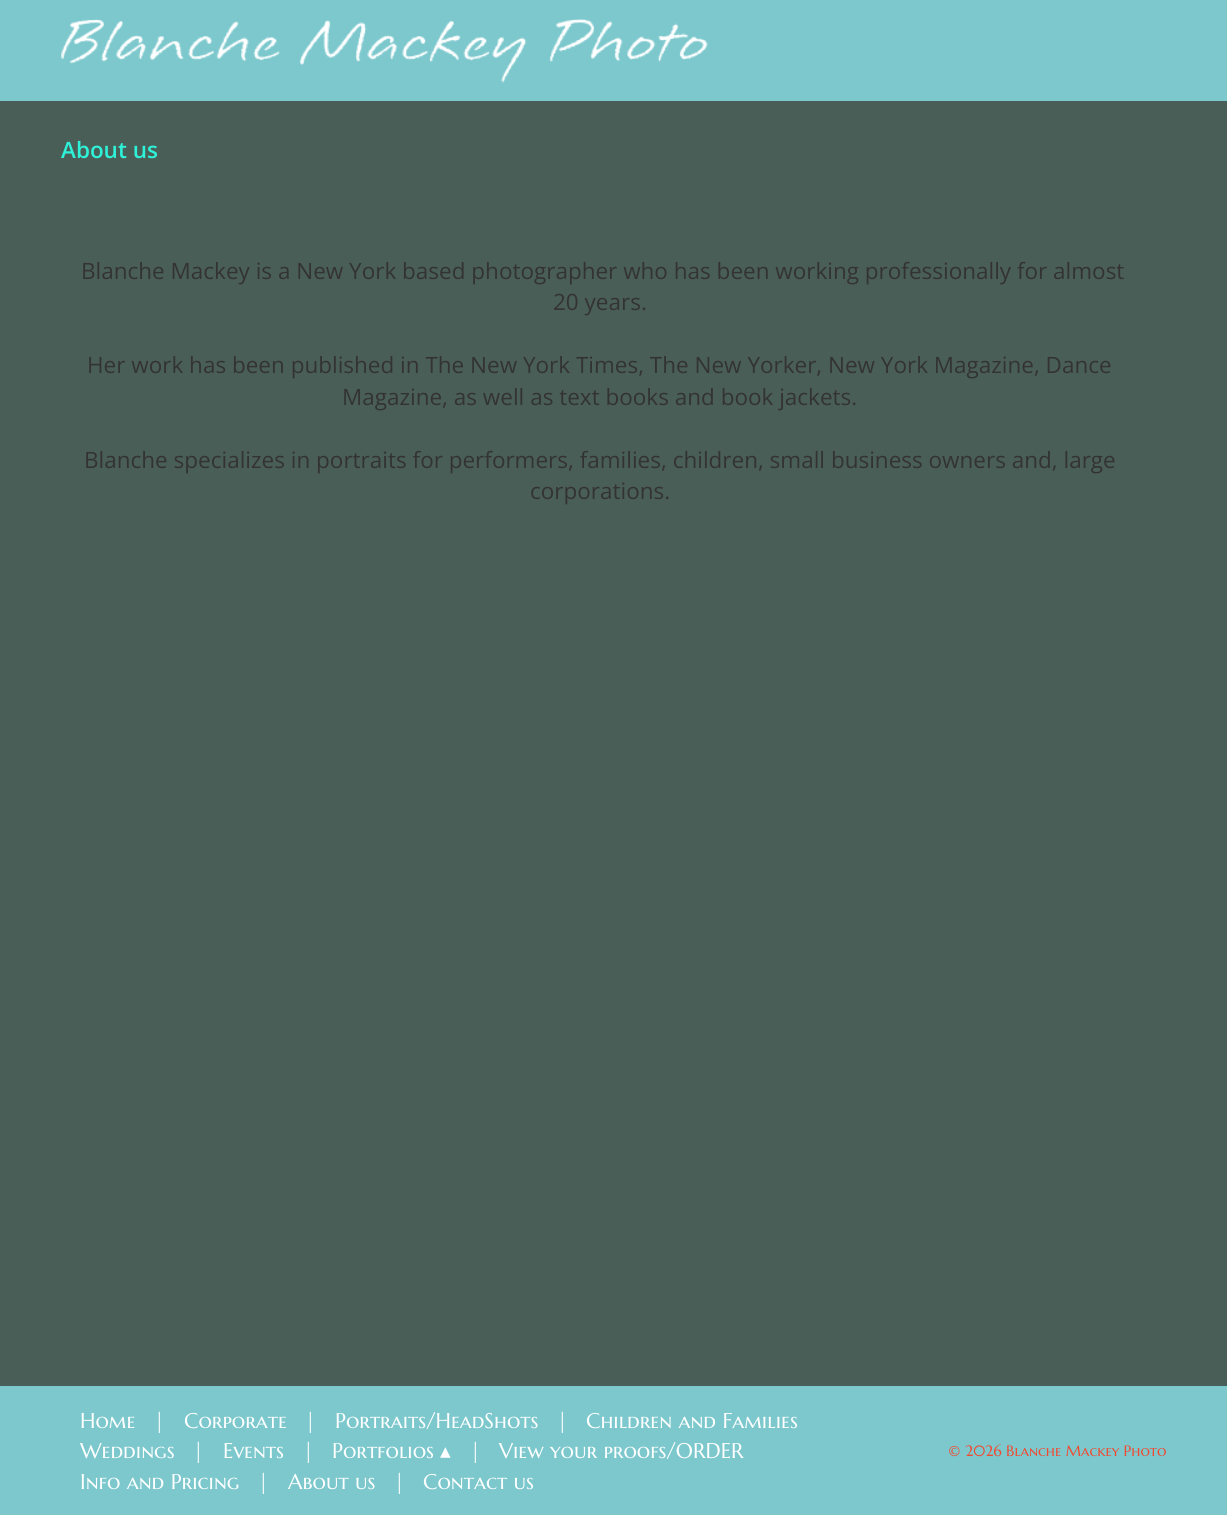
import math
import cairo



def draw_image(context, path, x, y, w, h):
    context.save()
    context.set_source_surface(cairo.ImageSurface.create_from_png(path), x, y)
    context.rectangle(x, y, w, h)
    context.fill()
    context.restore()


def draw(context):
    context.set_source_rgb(74 / 255, 94 / 255, 88 / 255)
    context.paint()
    context.set_source_rgb(124 / 255, 200 / 255, 205 / 255)
    context.rectangle(0, 0, 1227, 101)
    context.fill()
    draw_image(context, "images/1.png", 61, 19, 647, 64)
    context.rectangle(0, 1386, 1227, 129)
    context.fill()
    context.select_font_face("Open Sans SemiBold")
    context.set_font_size(22.5)
    context.set_source_rgb(46 / 255, 242 / 255, 216 / 255)
    context.move_to(61, 158)
    context.show_text("About us")
    context.select_font_face("Open Sans")
    context.set_source_rgb(51 / 255, 51 / 255, 51 / 255)
    context.move_to(81, 279)
    context.show_text("Blanche Mackey is a New York based photographer who has been working professionally for almost")
    context.move_to(553, 310)
    context.show_text("20 years.")
    context.move_to(87, 373)
    context.show_text("Her work has been published in The New York Times, The New Yorker, New York Magazine, Dance")
    context.move_to(342, 405)
    context.show_text("Magazine, as well as text books and book jackets.")
    context.move_to(84, 468)
    context.show_text("Blanche specializes in portraits for performers, families, children, small business owners and, large")
    context.move_to(530, 499)
    context.show_text("corporations.")
    context.select_font_face("Marcellus SC")
    context.set_font_size(21.25)
    context.set_source_rgb(1, 1, 1)
    context.move_to(80, 1428)
    context.show_text("Home")
    context.move_to(154, 1428)
    context.show_text("|")
    context.move_to(184, 1428)
    context.show_text("Corporate")
    context.move_to(305, 1428)
    context.show_text("|")
    context.move_to(335, 1428)
    context.show_text("Portraits/HeadShots")
    context.move_to(557, 1428)
    context.show_text("|")
    context.move_to(586, 1428)
    context.show_text("Children and Families")
    context.move_to(80, 1458)
    context.show_text("Weddings")
    context.move_to(193, 1458)
    context.show_text("|")
    context.move_to(223, 1458)
    context.show_text("Events")
    context.move_to(303, 1458)
    context.show_text("|")
    context.move_to(332, 1458)
    context.show_text("Portfolios")
    context.select_font_face("DejaVu Sans")
    context.move_to(440, 1458)
    context.show_text("▴")
    context.select_font_face("Marcellus SC")
    context.move_to(470, 1458)
    context.show_text("|")
    context.move_to(499, 1458)
    context.show_text("View your proofs/ORDER")
    context.move_to(80, 1489)
    context.show_text("Info and Pricing")
    context.move_to(258, 1489)
    context.show_text("|")
    context.move_to(288, 1489)
    context.show_text("About us")
    context.move_to(394, 1489)
    context.show_text("|")
    context.move_to(423, 1489)
    context.show_text("Contact us")
    context.set_font_size(15)
    context.set_source_rgb(242 / 255, 72 / 255, 47 / 255)
    context.move_to(948, 1456)
    context.show_text("© 2026 Blanche Mackey Photo")


surface = cairo.ImageSurface(cairo.Format.RGB24, 1227, 1515)
context = cairo.Context(surface)
options = cairo.FontOptions()
options.set_hint_metrics(cairo.HintMetrics.OFF)
options.set_hint_style(cairo.HintStyle.NONE)
context.set_font_options(options)
context.set_miter_limit(4)
draw(context)
surface.write_to_png("out.png")
